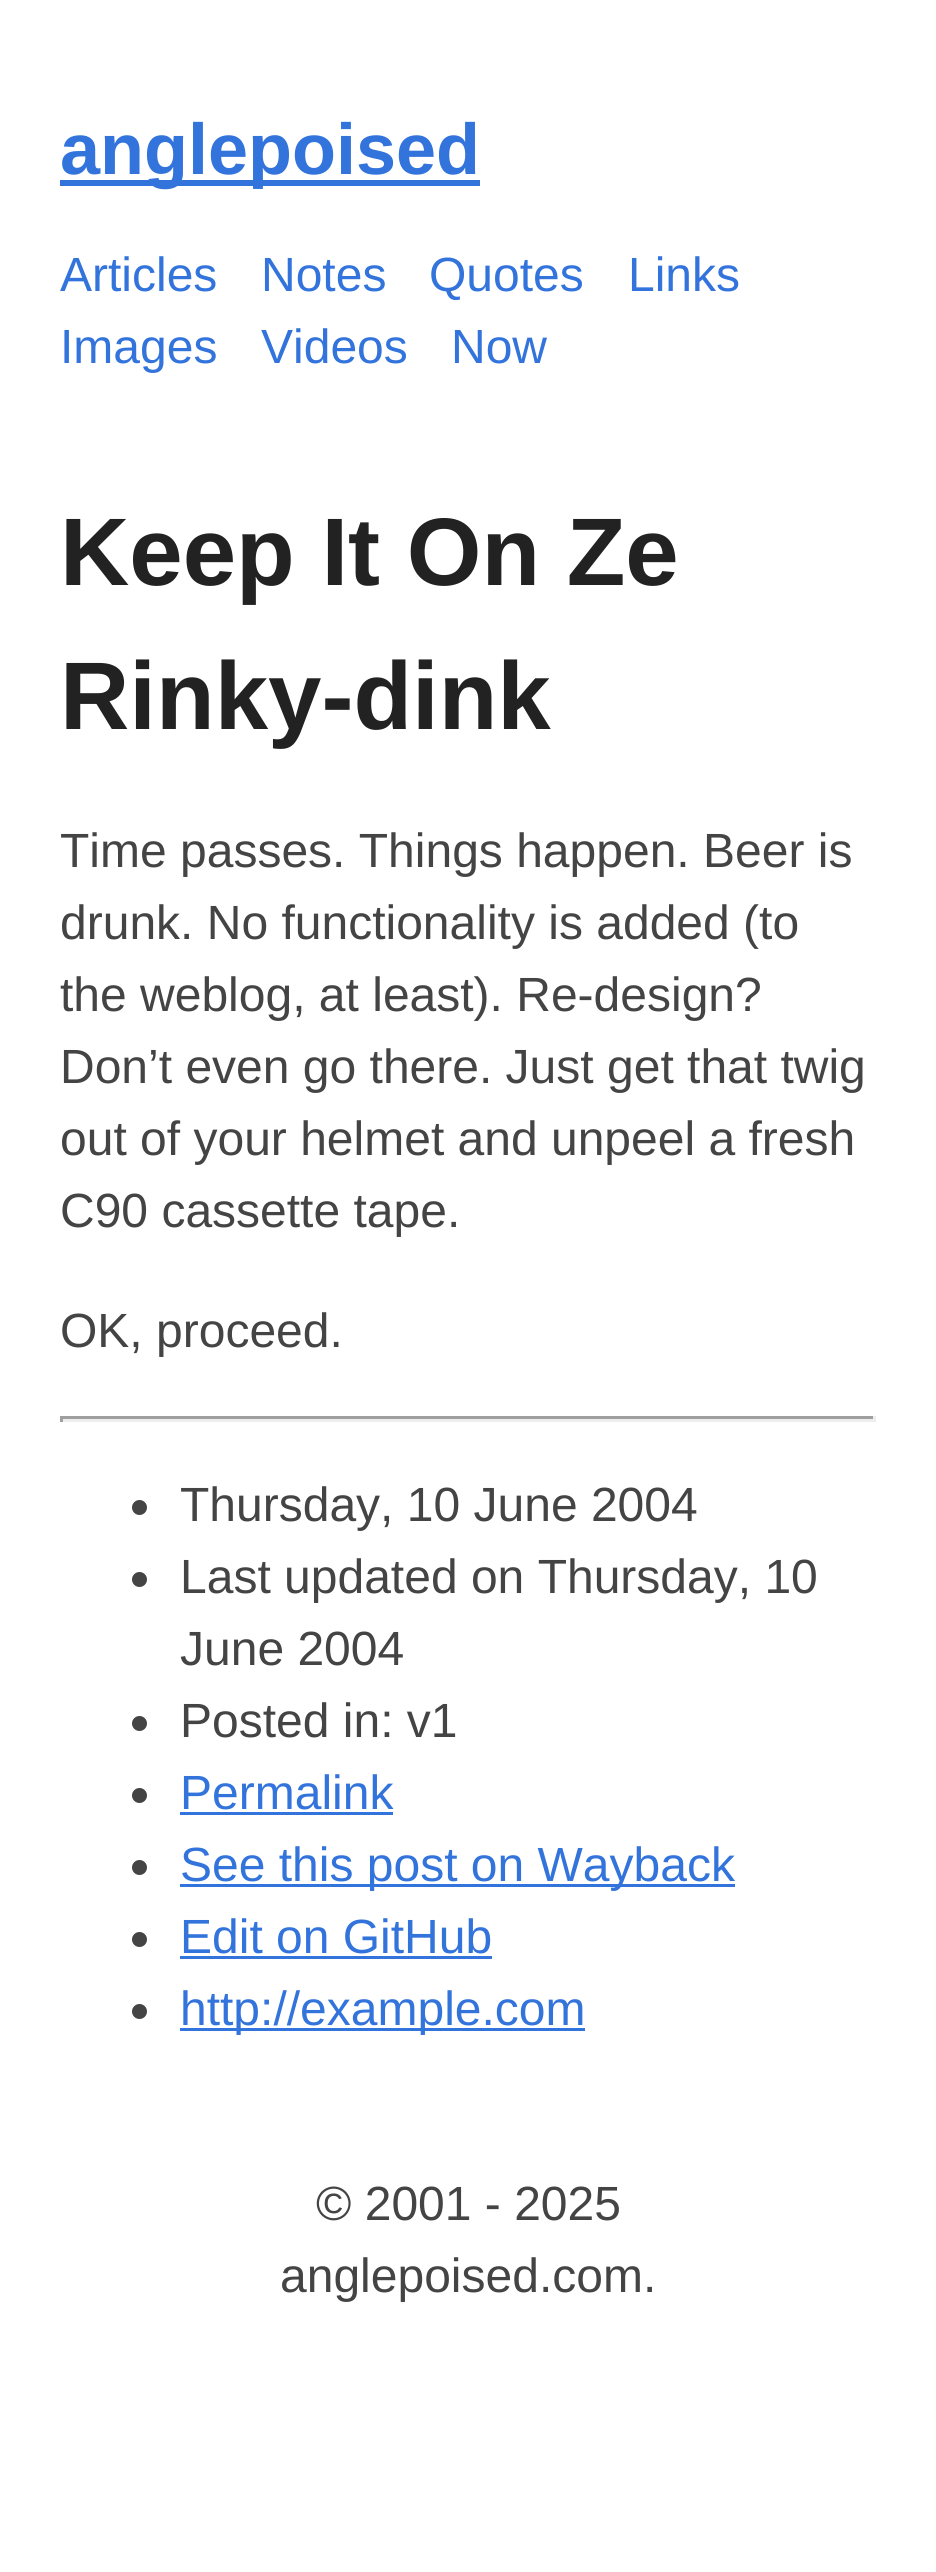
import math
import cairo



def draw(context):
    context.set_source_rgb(1, 1, 1)
    context.paint()
    context.set_source_rgb(50 / 255, 115 / 255, 220 / 255)
    context.rectangle(60, 180, 420, 6)
    context.fill()
    context.set_source_rgb(159 / 255, 159 / 255, 159 / 255)
    context.rectangle(60, 1416, 816, 3)
    context.fill()
    context.set_source_rgb(238 / 255, 238 / 255, 238 / 255)
    context.rectangle(873, 1416, 3, 6)
    context.fill()
    context.rectangle(60, 1419, 816, 3)
    context.fill()
    context.set_source_rgb(159 / 255, 159 / 255, 159 / 255)
    context.rectangle(60, 1416, 3, 6)
    context.fill()
    context.set_source_rgb(68 / 255, 68 / 255, 68 / 255)
    context.arc(139.5, 1507.5, 7.5, 0, 2 * math.pi)
    context.fill()
    context.arc(139.5, 1579.5, 7.5, 0, 2 * math.pi)
    context.fill()
    context.arc(139.5, 1723.5, 7.5, 0, 2 * math.pi)
    context.fill()
    context.arc(139.5, 1795.5, 7.5, 0, 2 * math.pi)
    context.fill()
    context.set_source_rgb(50 / 255, 115 / 255, 220 / 255)
    context.rectangle(180, 1812, 213, 3)
    context.fill()
    context.set_source_rgb(68 / 255, 68 / 255, 68 / 255)
    context.arc(139.5, 1867.5, 7.5, 0, 2 * math.pi)
    context.fill()
    context.set_source_rgb(50 / 255, 115 / 255, 220 / 255)
    context.rectangle(180, 1884, 555, 3)
    context.fill()
    context.set_source_rgb(68 / 255, 68 / 255, 68 / 255)
    context.arc(139.5, 1939.5, 7.5, 0, 2 * math.pi)
    context.fill()
    context.set_source_rgb(50 / 255, 115 / 255, 220 / 255)
    context.rectangle(180, 1956, 312, 3)
    context.fill()
    context.set_source_rgb(68 / 255, 68 / 255, 68 / 255)
    context.arc(139.5, 2011.5, 7.5, 0, 2 * math.pi)
    context.fill()
    context.set_source_rgb(50 / 255, 115 / 255, 220 / 255)
    context.rectangle(180, 2028, 405, 3)
    context.fill()
    context.select_font_face("Liberation Sans", cairo.FontSlant.NORMAL, cairo.FontWeight.BOLD)
    context.set_font_size(72)
    context.move_to(60, 174)
    context.show_text("anglepoised")
    context.select_font_face("Liberation Sans")
    context.set_font_size(48)
    context.move_to(60, 291)
    context.show_text("Articles")
    context.move_to(261, 291)
    context.show_text("Notes")
    context.move_to(429, 291)
    context.show_text("Quotes")
    context.move_to(628, 291)
    context.show_text("Links")
    context.move_to(60, 363)
    context.show_text("Images")
    context.move_to(261, 363)
    context.show_text("Videos")
    context.move_to(451, 363)
    context.show_text("Now")
    context.select_font_face("Liberation Sans", cairo.FontSlant.NORMAL, cairo.FontWeight.BOLD)
    context.set_font_size(96)
    context.set_source_rgb(34 / 255, 34 / 255, 34 / 255)
    context.move_to(60, 585)
    context.show_text("Keep It On Ze")
    context.move_to(60, 729)
    context.show_text("Rinky-dink")
    context.select_font_face("Liberation Sans")
    context.set_font_size(48)
    context.set_source_rgb(68 / 255, 68 / 255, 68 / 255)
    context.move_to(60, 867)
    context.show_text("Time passes. Things happen. Beer is")
    context.move_to(60, 939)
    context.show_text("drunk. No functionality is added (to")
    context.move_to(60, 1011)
    context.show_text("the weblog, at least). Re-design?")
    context.move_to(60, 1083)
    context.show_text("Don’t even go there. Just get that twig")
    context.move_to(60, 1155)
    context.show_text("out of your helmet and unpeel a fresh")
    context.move_to(60, 1227)
    context.show_text("C90 cassette tape.")
    context.move_to(60, 1347)
    context.show_text("OK, proceed.")
    context.move_to(180, 1521)
    context.show_text("Thursday, 10 June 2004")
    context.move_to(180, 1593)
    context.show_text("Last updated on Thursday, 10")
    context.move_to(180, 1665)
    context.show_text("June 2004")
    context.move_to(180, 1737)
    context.show_text("Posted in: v1")
    context.set_source_rgb(50 / 255, 115 / 255, 220 / 255)
    context.move_to(180, 1809)
    context.show_text("Permalink")
    context.move_to(180, 1881)
    context.show_text("See this post on Wayback")
    context.move_to(180, 1953)
    context.show_text("Edit on GitHub")
    context.move_to(180, 2025)
    context.show_text("http://example.com")
    context.set_source_rgb(68 / 255, 68 / 255, 68 / 255)
    context.move_to(316, 2220)
    context.show_text("© 2001 - 2025")
    context.move_to(280, 2292)
    context.show_text("anglepoised.com.")


surface = cairo.ImageSurface(cairo.Format.RGB24, 936, 2572)
context = cairo.Context(surface)
options = cairo.FontOptions()
options.set_hint_metrics(cairo.HintMetrics.OFF)
options.set_hint_style(cairo.HintStyle.NONE)
context.set_font_options(options)
context.set_miter_limit(4)
draw(context)
surface.write_to_png("out.png")
